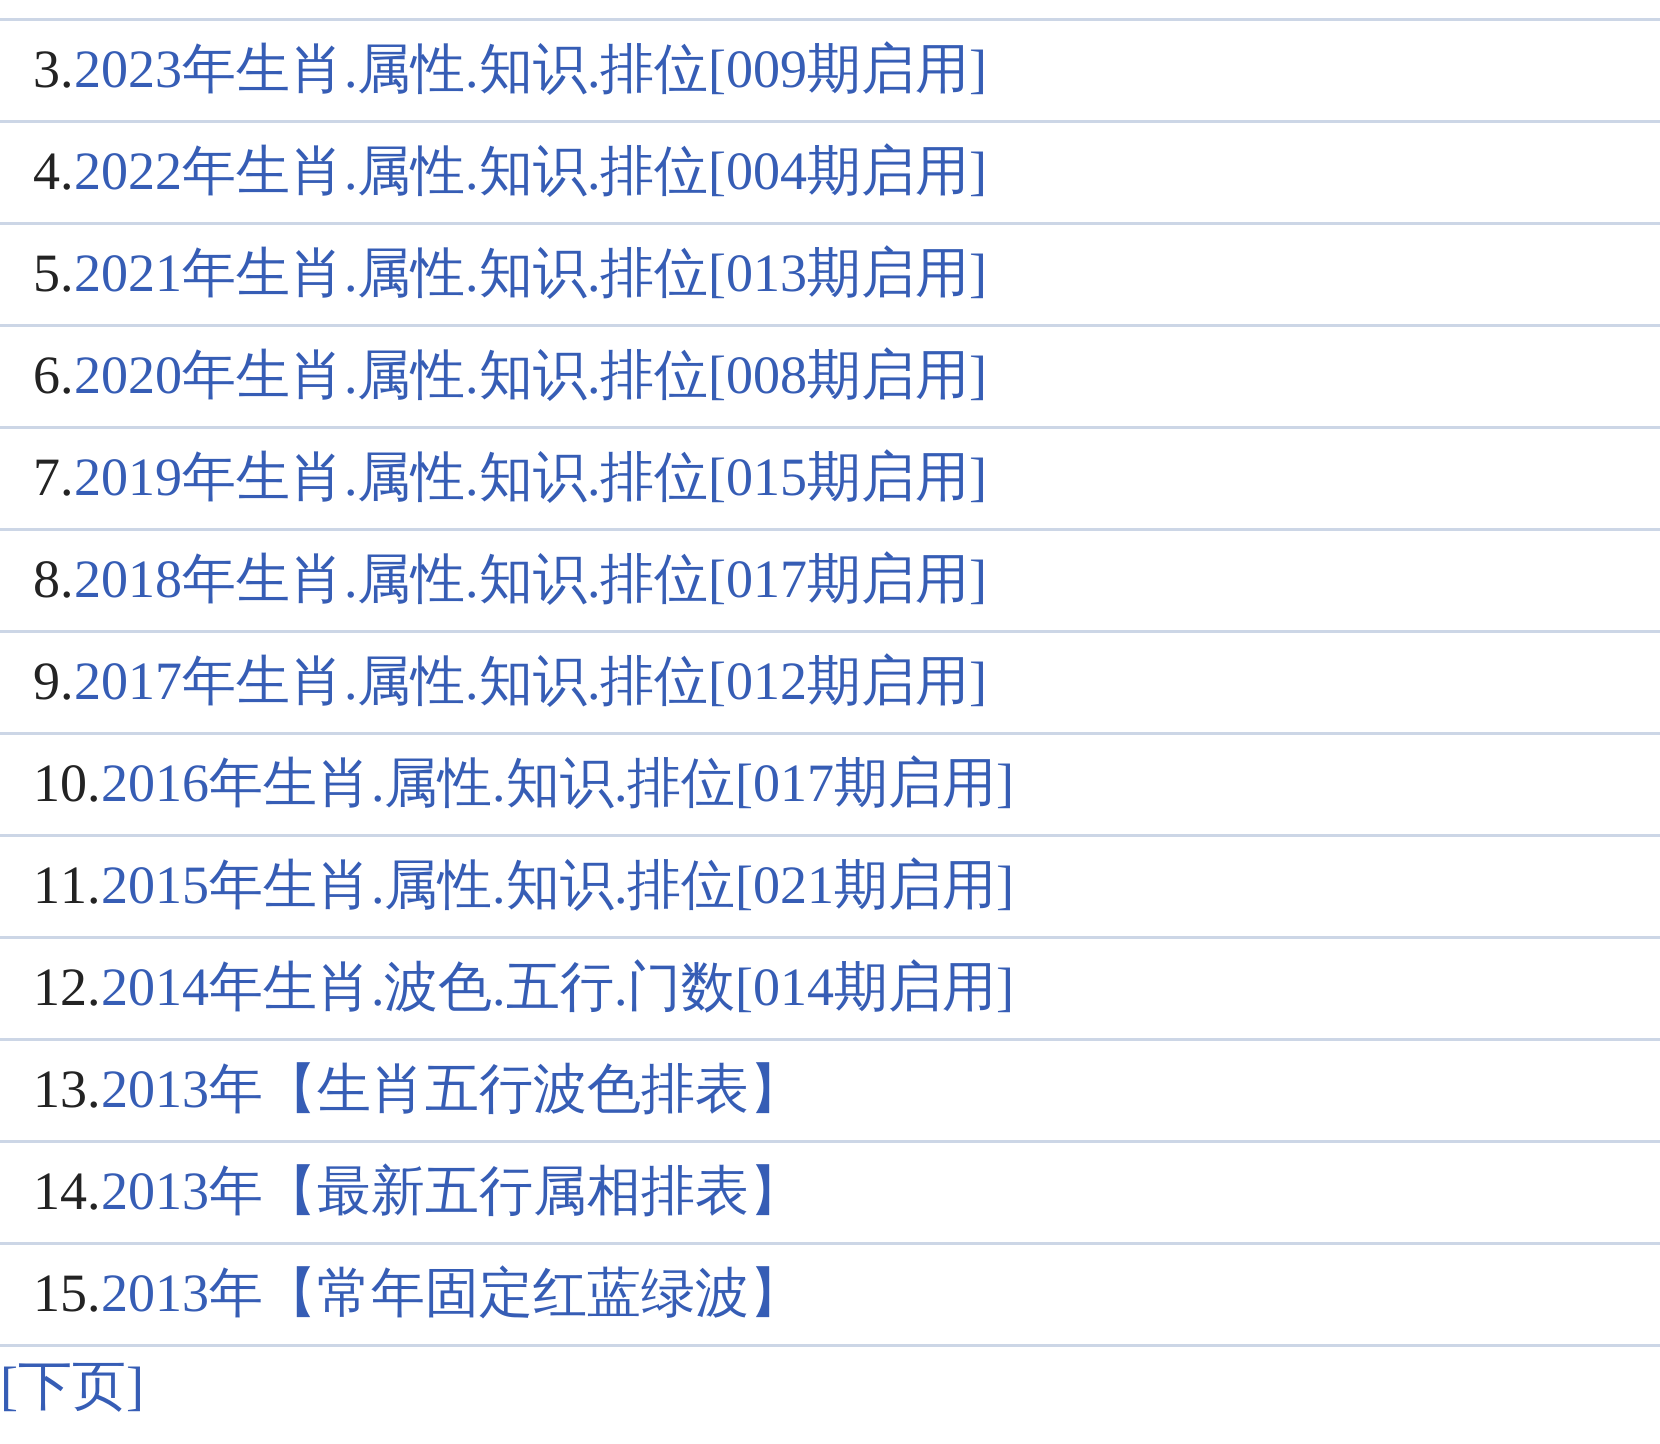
import math
import cairo



def draw(context):
    context.set_source_rgb(1, 1, 1)
    context.paint()
    context.set_source_rgb(204 / 255, 214 / 255, 230 / 255)
    context.rectangle(0, 18, 1660, 3)
    context.fill()
    context.rectangle(0, 120, 1660, 3)
    context.fill()
    context.rectangle(0, 222, 1660, 3)
    context.fill()
    context.rectangle(0, 324, 1660, 3)
    context.fill()
    context.rectangle(0, 426, 1660, 3)
    context.fill()
    context.rectangle(0, 528, 1660, 3)
    context.fill()
    context.rectangle(0, 630, 1660, 3)
    context.fill()
    context.rectangle(0, 732, 1660, 3)
    context.fill()
    context.rectangle(0, 834, 1660, 3)
    context.fill()
    context.rectangle(0, 936, 1660, 3)
    context.fill()
    context.rectangle(0, 1038, 1660, 3)
    context.fill()
    context.rectangle(0, 1140, 1660, 3)
    context.fill()
    context.rectangle(0, 1242, 1660, 3)
    context.fill()
    context.rectangle(0, 1344, 1660, 3)
    context.fill()
    context.select_font_face("Liberation Serif")
    context.set_font_size(54)
    context.set_source_rgb(35 / 255, 35 / 255, 35 / 255)
    context.move_to(33, 87)
    context.show_text("3.")
    context.set_source_rgb(54 / 255, 93 / 255, 181 / 255)
    context.move_to(74, 87)
    context.show_text("2023")
    context.select_font_face("WenQuanYi Zen Hei Medium")
    context.move_to(182, 87)
    context.show_text("年生肖")
    context.select_font_face("Liberation Serif")
    context.move_to(344, 87)
    context.show_text(".")
    context.select_font_face("WenQuanYi Zen Hei Medium")
    context.move_to(357, 87)
    context.show_text("属性")
    context.select_font_face("Liberation Serif")
    context.move_to(465, 87)
    context.show_text(".")
    context.select_font_face("WenQuanYi Zen Hei Medium")
    context.move_to(479, 87)
    context.show_text("知识")
    context.select_font_face("Liberation Serif")
    context.move_to(587, 87)
    context.show_text(".")
    context.select_font_face("WenQuanYi Zen Hei Medium")
    context.move_to(600, 87)
    context.show_text("排位")
    context.select_font_face("Liberation Serif")
    context.move_to(708, 87)
    context.show_text("[009")
    context.select_font_face("WenQuanYi Zen Hei Medium")
    context.move_to(807, 87)
    context.show_text("期启用")
    context.select_font_face("Liberation Serif")
    context.move_to(969, 87)
    context.show_text("]")
    context.set_source_rgb(35 / 255, 35 / 255, 35 / 255)
    context.move_to(33, 189)
    context.show_text("4.")
    context.set_source_rgb(54 / 255, 93 / 255, 181 / 255)
    context.move_to(74, 189)
    context.show_text("2022")
    context.select_font_face("WenQuanYi Zen Hei Medium")
    context.move_to(182, 189)
    context.show_text("年生肖")
    context.select_font_face("Liberation Serif")
    context.move_to(344, 189)
    context.show_text(".")
    context.select_font_face("WenQuanYi Zen Hei Medium")
    context.move_to(357, 189)
    context.show_text("属性")
    context.select_font_face("Liberation Serif")
    context.move_to(465, 189)
    context.show_text(".")
    context.select_font_face("WenQuanYi Zen Hei Medium")
    context.move_to(479, 189)
    context.show_text("知识")
    context.select_font_face("Liberation Serif")
    context.move_to(587, 189)
    context.show_text(".")
    context.select_font_face("WenQuanYi Zen Hei Medium")
    context.move_to(600, 189)
    context.show_text("排位")
    context.select_font_face("Liberation Serif")
    context.move_to(708, 189)
    context.show_text("[004")
    context.select_font_face("WenQuanYi Zen Hei Medium")
    context.move_to(807, 189)
    context.show_text("期启用")
    context.select_font_face("Liberation Serif")
    context.move_to(969, 189)
    context.show_text("]")
    context.set_source_rgb(35 / 255, 35 / 255, 35 / 255)
    context.move_to(33, 291)
    context.show_text("5.")
    context.set_source_rgb(54 / 255, 93 / 255, 181 / 255)
    context.move_to(74, 291)
    context.show_text("2021")
    context.select_font_face("WenQuanYi Zen Hei Medium")
    context.move_to(182, 291)
    context.show_text("年生肖")
    context.select_font_face("Liberation Serif")
    context.move_to(344, 291)
    context.show_text(".")
    context.select_font_face("WenQuanYi Zen Hei Medium")
    context.move_to(357, 291)
    context.show_text("属性")
    context.select_font_face("Liberation Serif")
    context.move_to(465, 291)
    context.show_text(".")
    context.select_font_face("WenQuanYi Zen Hei Medium")
    context.move_to(479, 291)
    context.show_text("知识")
    context.select_font_face("Liberation Serif")
    context.move_to(587, 291)
    context.show_text(".")
    context.select_font_face("WenQuanYi Zen Hei Medium")
    context.move_to(600, 291)
    context.show_text("排位")
    context.select_font_face("Liberation Serif")
    context.move_to(708, 291)
    context.show_text("[013")
    context.select_font_face("WenQuanYi Zen Hei Medium")
    context.move_to(807, 291)
    context.show_text("期启用")
    context.select_font_face("Liberation Serif")
    context.move_to(969, 291)
    context.show_text("]")
    context.set_source_rgb(35 / 255, 35 / 255, 35 / 255)
    context.move_to(33, 393)
    context.show_text("6.")
    context.set_source_rgb(54 / 255, 93 / 255, 181 / 255)
    context.move_to(74, 393)
    context.show_text("2020")
    context.select_font_face("WenQuanYi Zen Hei Medium")
    context.move_to(182, 393)
    context.show_text("年生肖")
    context.select_font_face("Liberation Serif")
    context.move_to(344, 393)
    context.show_text(".")
    context.select_font_face("WenQuanYi Zen Hei Medium")
    context.move_to(357, 393)
    context.show_text("属性")
    context.select_font_face("Liberation Serif")
    context.move_to(465, 393)
    context.show_text(".")
    context.select_font_face("WenQuanYi Zen Hei Medium")
    context.move_to(479, 393)
    context.show_text("知识")
    context.select_font_face("Liberation Serif")
    context.move_to(587, 393)
    context.show_text(".")
    context.select_font_face("WenQuanYi Zen Hei Medium")
    context.move_to(600, 393)
    context.show_text("排位")
    context.select_font_face("Liberation Serif")
    context.move_to(708, 393)
    context.show_text("[008")
    context.select_font_face("WenQuanYi Zen Hei Medium")
    context.move_to(807, 393)
    context.show_text("期启用")
    context.select_font_face("Liberation Serif")
    context.move_to(969, 393)
    context.show_text("]")
    context.set_source_rgb(35 / 255, 35 / 255, 35 / 255)
    context.move_to(33, 495)
    context.show_text("7.")
    context.set_source_rgb(54 / 255, 93 / 255, 181 / 255)
    context.move_to(74, 495)
    context.show_text("2019")
    context.select_font_face("WenQuanYi Zen Hei Medium")
    context.move_to(182, 495)
    context.show_text("年生肖")
    context.select_font_face("Liberation Serif")
    context.move_to(344, 495)
    context.show_text(".")
    context.select_font_face("WenQuanYi Zen Hei Medium")
    context.move_to(357, 495)
    context.show_text("属性")
    context.select_font_face("Liberation Serif")
    context.move_to(465, 495)
    context.show_text(".")
    context.select_font_face("WenQuanYi Zen Hei Medium")
    context.move_to(479, 495)
    context.show_text("知识")
    context.select_font_face("Liberation Serif")
    context.move_to(587, 495)
    context.show_text(".")
    context.select_font_face("WenQuanYi Zen Hei Medium")
    context.move_to(600, 495)
    context.show_text("排位")
    context.select_font_face("Liberation Serif")
    context.move_to(708, 495)
    context.show_text("[015")
    context.select_font_face("WenQuanYi Zen Hei Medium")
    context.move_to(807, 495)
    context.show_text("期启用")
    context.select_font_face("Liberation Serif")
    context.move_to(969, 495)
    context.show_text("]")
    context.set_source_rgb(35 / 255, 35 / 255, 35 / 255)
    context.move_to(33, 597)
    context.show_text("8.")
    context.set_source_rgb(54 / 255, 93 / 255, 181 / 255)
    context.move_to(74, 597)
    context.show_text("2018")
    context.select_font_face("WenQuanYi Zen Hei Medium")
    context.move_to(182, 597)
    context.show_text("年生肖")
    context.select_font_face("Liberation Serif")
    context.move_to(344, 597)
    context.show_text(".")
    context.select_font_face("WenQuanYi Zen Hei Medium")
    context.move_to(357, 597)
    context.show_text("属性")
    context.select_font_face("Liberation Serif")
    context.move_to(465, 597)
    context.show_text(".")
    context.select_font_face("WenQuanYi Zen Hei Medium")
    context.move_to(479, 597)
    context.show_text("知识")
    context.select_font_face("Liberation Serif")
    context.move_to(587, 597)
    context.show_text(".")
    context.select_font_face("WenQuanYi Zen Hei Medium")
    context.move_to(600, 597)
    context.show_text("排位")
    context.select_font_face("Liberation Serif")
    context.move_to(708, 597)
    context.show_text("[017")
    context.select_font_face("WenQuanYi Zen Hei Medium")
    context.move_to(807, 597)
    context.show_text("期启用")
    context.select_font_face("Liberation Serif")
    context.move_to(969, 597)
    context.show_text("]")
    context.set_source_rgb(35 / 255, 35 / 255, 35 / 255)
    context.move_to(33, 699)
    context.show_text("9.")
    context.set_source_rgb(54 / 255, 93 / 255, 181 / 255)
    context.move_to(74, 699)
    context.show_text("2017")
    context.select_font_face("WenQuanYi Zen Hei Medium")
    context.move_to(182, 699)
    context.show_text("年生肖")
    context.select_font_face("Liberation Serif")
    context.move_to(344, 699)
    context.show_text(".")
    context.select_font_face("WenQuanYi Zen Hei Medium")
    context.move_to(357, 699)
    context.show_text("属性")
    context.select_font_face("Liberation Serif")
    context.move_to(465, 699)
    context.show_text(".")
    context.select_font_face("WenQuanYi Zen Hei Medium")
    context.move_to(479, 699)
    context.show_text("知识")
    context.select_font_face("Liberation Serif")
    context.move_to(587, 699)
    context.show_text(".")
    context.select_font_face("WenQuanYi Zen Hei Medium")
    context.move_to(600, 699)
    context.show_text("排位")
    context.select_font_face("Liberation Serif")
    context.move_to(708, 699)
    context.show_text("[012")
    context.select_font_face("WenQuanYi Zen Hei Medium")
    context.move_to(807, 699)
    context.show_text("期启用")
    context.select_font_face("Liberation Serif")
    context.move_to(969, 699)
    context.show_text("]")
    context.set_source_rgb(35 / 255, 35 / 255, 35 / 255)
    context.move_to(33, 801)
    context.show_text("10.")
    context.set_source_rgb(54 / 255, 93 / 255, 181 / 255)
    context.move_to(101, 801)
    context.show_text("2016")
    context.select_font_face("WenQuanYi Zen Hei Medium")
    context.move_to(209, 801)
    context.show_text("年生肖")
    context.select_font_face("Liberation Serif")
    context.move_to(371, 801)
    context.show_text(".")
    context.select_font_face("WenQuanYi Zen Hei Medium")
    context.move_to(384, 801)
    context.show_text("属性")
    context.select_font_face("Liberation Serif")
    context.move_to(492, 801)
    context.show_text(".")
    context.select_font_face("WenQuanYi Zen Hei Medium")
    context.move_to(506, 801)
    context.show_text("知识")
    context.select_font_face("Liberation Serif")
    context.move_to(614, 801)
    context.show_text(".")
    context.select_font_face("WenQuanYi Zen Hei Medium")
    context.move_to(627, 801)
    context.show_text("排位")
    context.select_font_face("Liberation Serif")
    context.move_to(735, 801)
    context.show_text("[017")
    context.select_font_face("WenQuanYi Zen Hei Medium")
    context.move_to(834, 801)
    context.show_text("期启用")
    context.select_font_face("Liberation Serif")
    context.move_to(996, 801)
    context.show_text("]")
    context.set_source_rgb(35 / 255, 35 / 255, 35 / 255)
    context.move_to(33, 903)
    context.show_text("11.")
    context.set_source_rgb(54 / 255, 93 / 255, 181 / 255)
    context.move_to(101, 903)
    context.show_text("2015")
    context.select_font_face("WenQuanYi Zen Hei Medium")
    context.move_to(209, 903)
    context.show_text("年生肖")
    context.select_font_face("Liberation Serif")
    context.move_to(371, 903)
    context.show_text(".")
    context.select_font_face("WenQuanYi Zen Hei Medium")
    context.move_to(384, 903)
    context.show_text("属性")
    context.select_font_face("Liberation Serif")
    context.move_to(492, 903)
    context.show_text(".")
    context.select_font_face("WenQuanYi Zen Hei Medium")
    context.move_to(506, 903)
    context.show_text("知识")
    context.select_font_face("Liberation Serif")
    context.move_to(614, 903)
    context.show_text(".")
    context.select_font_face("WenQuanYi Zen Hei Medium")
    context.move_to(627, 903)
    context.show_text("排位")
    context.select_font_face("Liberation Serif")
    context.move_to(735, 903)
    context.show_text("[021")
    context.select_font_face("WenQuanYi Zen Hei Medium")
    context.move_to(834, 903)
    context.show_text("期启用")
    context.select_font_face("Liberation Serif")
    context.move_to(996, 903)
    context.show_text("]")
    context.set_source_rgb(35 / 255, 35 / 255, 35 / 255)
    context.move_to(33, 1005)
    context.show_text("12.")
    context.set_source_rgb(54 / 255, 93 / 255, 181 / 255)
    context.move_to(101, 1005)
    context.show_text("2014")
    context.select_font_face("WenQuanYi Zen Hei Medium")
    context.move_to(209, 1005)
    context.show_text("年生肖")
    context.select_font_face("Liberation Serif")
    context.move_to(371, 1005)
    context.show_text(".")
    context.select_font_face("WenQuanYi Zen Hei Medium")
    context.move_to(384, 1005)
    context.show_text("波色")
    context.select_font_face("Liberation Serif")
    context.move_to(492, 1005)
    context.show_text(".")
    context.select_font_face("WenQuanYi Zen Hei Medium")
    context.move_to(506, 1005)
    context.show_text("五行")
    context.select_font_face("Liberation Serif")
    context.move_to(614, 1005)
    context.show_text(".")
    context.select_font_face("WenQuanYi Zen Hei Medium")
    context.move_to(627, 1005)
    context.show_text("门数")
    context.select_font_face("Liberation Serif")
    context.move_to(735, 1005)
    context.show_text("[014")
    context.select_font_face("WenQuanYi Zen Hei Medium")
    context.move_to(834, 1005)
    context.show_text("期启用")
    context.select_font_face("Liberation Serif")
    context.move_to(996, 1005)
    context.show_text("]")
    context.set_source_rgb(35 / 255, 35 / 255, 35 / 255)
    context.move_to(33, 1107)
    context.show_text("13.")
    context.set_source_rgb(54 / 255, 93 / 255, 181 / 255)
    context.move_to(101, 1107)
    context.show_text("2013")
    context.select_font_face("WenQuanYi Zen Hei Medium")
    context.move_to(209, 1107)
    context.show_text("年【生肖五行波色排表】")
    context.select_font_face("Liberation Serif")
    context.set_source_rgb(35 / 255, 35 / 255, 35 / 255)
    context.move_to(33, 1209)
    context.show_text("14.")
    context.set_source_rgb(54 / 255, 93 / 255, 181 / 255)
    context.move_to(101, 1209)
    context.show_text("2013")
    context.select_font_face("WenQuanYi Zen Hei Medium")
    context.move_to(209, 1209)
    context.show_text("年【最新五行属相排表】")
    context.select_font_face("Liberation Serif")
    context.set_source_rgb(35 / 255, 35 / 255, 35 / 255)
    context.move_to(33, 1311)
    context.show_text("15.")
    context.set_source_rgb(54 / 255, 93 / 255, 181 / 255)
    context.move_to(101, 1311)
    context.show_text("2013")
    context.select_font_face("WenQuanYi Zen Hei Medium")
    context.move_to(209, 1311)
    context.show_text("年【常年固定红蓝绿波】")
    context.select_font_face("Liberation Serif")
    context.move_to(0, 1404)
    context.show_text("[")
    context.select_font_face("WenQuanYi Zen Hei Medium")
    context.move_to(18, 1404)
    context.show_text("下页")
    context.select_font_face("Liberation Serif")
    context.move_to(126, 1404)
    context.show_text("]")


surface = cairo.ImageSurface(cairo.Format.RGB24, 1660, 1444)
context = cairo.Context(surface)
options = cairo.FontOptions()
options.set_hint_metrics(cairo.HintMetrics.OFF)
options.set_hint_style(cairo.HintStyle.NONE)
context.set_font_options(options)
context.set_miter_limit(4)
draw(context)
surface.write_to_png("out.png")
